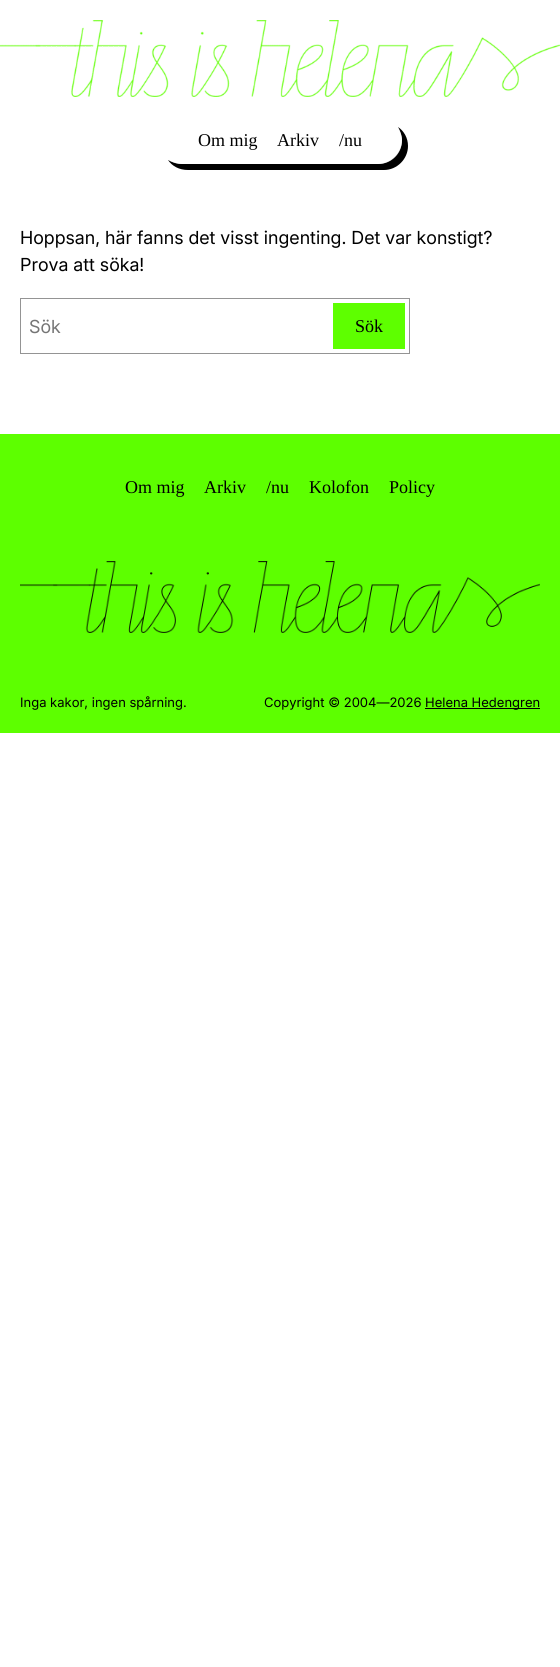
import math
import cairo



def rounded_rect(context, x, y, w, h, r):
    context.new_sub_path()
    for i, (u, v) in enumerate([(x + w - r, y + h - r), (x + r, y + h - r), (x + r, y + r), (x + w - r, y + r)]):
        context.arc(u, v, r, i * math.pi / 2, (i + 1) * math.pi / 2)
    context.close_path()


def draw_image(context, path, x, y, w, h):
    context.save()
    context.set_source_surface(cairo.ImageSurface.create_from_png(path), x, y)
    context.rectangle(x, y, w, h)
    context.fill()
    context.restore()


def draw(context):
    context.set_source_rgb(1, 1, 1)
    context.paint()
    draw_image(context, "images/1.png", 0, 20, 560, 77)
    context.set_source_rgb(0, 0, 0)
    context.new_path()
    context.move_to(168, 160)
    context.curve_to(172, 166, 179, 170, 188, 170)
    context.line_to(384, 170)
    context.curve_to(397, 170, 408, 159, 408, 146)
    context.curve_to(408, 138, 404, 131, 398, 127)
    context.curve_to(400, 131, 402, 136, 402, 140)
    context.curve_to(402, 153, 391, 164, 378, 164)
    context.line_to(182, 164)
    context.curve_to(177, 164, 172, 162, 168, 160)
    context.close_path()
    context.fill()
    context.set_source_rgba(1, 1, 1, 0.61)
    rounded_rect(context, 158, 117, 244, 47, 23.5)
    context.fill()
    context.rectangle(20.5, 298.5, 389, 55)
    context.set_source_rgb(148 / 255, 148 / 255, 148 / 255)
    context.set_line_width(1)
    context.stroke()
    context.set_source_rgb(94 / 255, 1, 0)
    context.rectangle(333, 303, 72, 46)
    context.fill()
    context.set_source_rgb(93 / 255, 1, 0)
    context.rectangle(0, 434, 560, 299)
    context.fill()
    draw_image(context, "images/2.png", 20, 561, 520, 72)
    context.set_source_rgb(0, 0, 0)
    context.rectangle(425, 708, 115, 1)
    context.fill()
    context.select_font_face("Liberation Serif")
    context.set_font_size(18)
    context.move_to(198, 146)
    context.show_text("Om mig")
    context.move_to(277, 146)
    context.show_text("Arkiv")
    context.move_to(339, 146)
    context.show_text("/nu")
    context.select_font_face("Inter")
    context.move_to(20, 244)
    context.show_text("Hoppsan, här fanns det visst ingenting. Det var konstigt?")
    context.move_to(20, 271)
    context.show_text("Prova att söka!")
    context.set_source_rgb(117 / 255, 117 / 255, 117 / 255)
    context.move_to(29, 333)
    context.show_text("Sök")
    context.select_font_face("Liberation Serif")
    context.set_source_rgb(0, 0, 0)
    context.move_to(355, 332)
    context.show_text("Sök")
    context.move_to(125, 493)
    context.show_text("Om mig")
    context.move_to(204, 493)
    context.show_text("Arkiv")
    context.move_to(266, 493)
    context.show_text("/nu")
    context.move_to(309, 493)
    context.show_text("Kolofon")
    context.move_to(389, 493)
    context.show_text("Policy")
    context.select_font_face("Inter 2")
    context.set_font_size(13)
    context.move_to(20, 707)
    context.show_text("Inga kakor, ingen spårning.")
    context.move_to(264, 707)
    context.show_text("Copyright © 2004—2026")
    context.move_to(425, 707)
    context.show_text("Helena Hedengren")


surface = cairo.ImageSurface(cairo.Format.RGB24, 560, 1667)
context = cairo.Context(surface)
options = cairo.FontOptions()
options.set_hint_metrics(cairo.HintMetrics.OFF)
options.set_hint_style(cairo.HintStyle.NONE)
context.set_font_options(options)
context.set_miter_limit(4)
draw(context)
surface.write_to_png("out.png")
